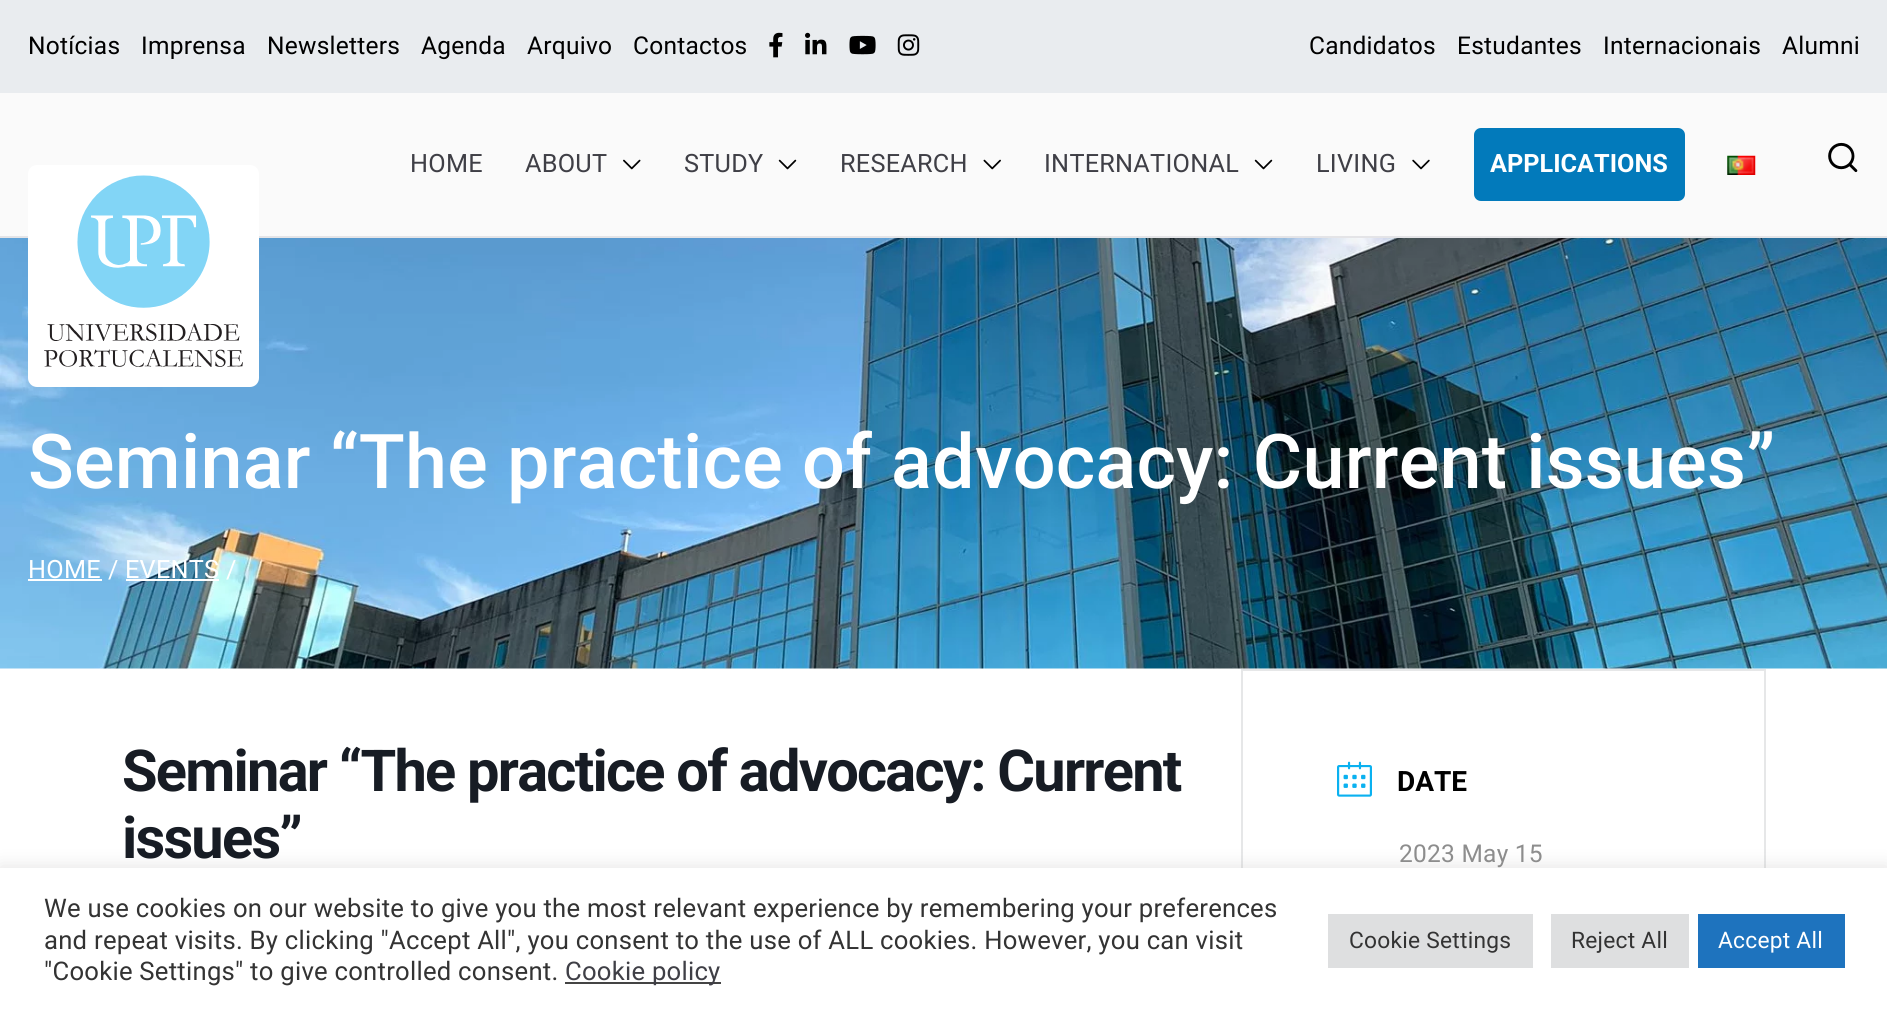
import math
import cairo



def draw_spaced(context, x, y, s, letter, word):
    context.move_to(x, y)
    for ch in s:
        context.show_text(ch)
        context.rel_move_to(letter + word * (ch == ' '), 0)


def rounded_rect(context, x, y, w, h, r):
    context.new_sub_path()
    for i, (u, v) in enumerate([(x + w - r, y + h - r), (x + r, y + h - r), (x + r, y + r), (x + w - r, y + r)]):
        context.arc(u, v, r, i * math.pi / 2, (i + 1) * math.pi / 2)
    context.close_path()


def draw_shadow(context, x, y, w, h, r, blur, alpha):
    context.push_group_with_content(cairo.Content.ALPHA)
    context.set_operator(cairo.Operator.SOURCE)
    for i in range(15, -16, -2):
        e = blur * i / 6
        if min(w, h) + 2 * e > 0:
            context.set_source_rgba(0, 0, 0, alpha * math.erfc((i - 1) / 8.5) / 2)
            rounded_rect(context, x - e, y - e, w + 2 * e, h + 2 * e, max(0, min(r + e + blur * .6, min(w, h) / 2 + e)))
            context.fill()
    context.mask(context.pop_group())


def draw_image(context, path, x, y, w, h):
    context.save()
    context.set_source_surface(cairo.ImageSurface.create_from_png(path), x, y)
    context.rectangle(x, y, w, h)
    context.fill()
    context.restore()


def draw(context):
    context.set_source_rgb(250 / 255, 250 / 255, 250 / 255)
    context.paint()
    context.set_source_rgb(228 / 255, 228 / 255, 231 / 255)
    context.rectangle(0, 236, 1887, 2)
    context.fill()
    context.set_source_rgb(233 / 255, 236 / 255, 239 / 255)
    context.rectangle(0, 0, 1887, 93)
    context.fill()
    draw_image(context, "images/1.png", 769, 32, 14, 26)
    draw_image(context, "images/2.png", 805, 32, 22, 23)
    draw_image(context, "images/3.png", 849, 35, 27, 20)
    draw_image(context, "images/4.png", 897, 34, 23, 22)
    draw_image(context, "images/5.png", 623, 159, 18, 11)
    draw_image(context, "images/6.png", 778, 159, 19, 11)
    draw_image(context, "images/7.png", 983, 159, 18, 11)
    draw_image(context, "images/6.png", 1254, 159, 19, 11)
    draw_image(context, "images/8.png", 1412, 159, 18, 11)
    context.set_source_rgb(2 / 255, 122 / 255, 187 / 255)
    rounded_rect(context, 1474, 128, 211, 73, 7)
    context.fill()
    draw_image(context, "images/9.png", 1727, 155, 29, 20)
    draw_image(context, "images/10.png", 1828, 142, 30, 31)
    context.set_source_rgb(1, 1, 1)
    context.rectangle(0, 668, 1887, 200)
    context.fill()
    draw_image(context, "images/12.png", 0, 238, 1887, 431)
    rounded_rect(context, 28, 165, 231, 222, 9)
    context.fill()
    draw_image(context, "images/11.png", 44, 175, 199, 192)
    context.rectangle(28, 579, 74, 2)
    context.fill()
    context.rectangle(126, 579, 93, 2)
    context.fill()
    context.rectangle(1242, 670, 523, 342)
    context.set_source_rgb(230 / 255, 231 / 255, 232 / 255)
    context.stroke()
    draw_image(context, "images/13.png", 1337, 761, 35, 36)
    context.set_source_rgb(172 / 255, 171 / 255, 171 / 255)
    draw_shadow(context, 0, 866, 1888, 144, 0, 9, 0.3)
    context.set_source_rgb(1, 1, 1)
    context.rectangle(0, 868, 1887, 143)
    context.fill()
    context.set_source_rgb(68 / 255, 68 / 255, 68 / 255)
    context.rectangle(565, 982, 156, 2)
    context.fill()
    context.set_source_rgb(222 / 255, 223 / 255, 224 / 255)
    context.rectangle(1328, 914, 205, 54)
    context.fill()
    context.rectangle(1551, 914, 138, 54)
    context.fill()
    context.set_source_rgb(30 / 255, 115 / 255, 190 / 255)
    context.rectangle(1698, 914, 147, 54)
    context.fill()
    context.select_font_face("Roboto")
    context.set_font_size(24.5)
    context.set_source_rgb(0, 0, 0)
    draw_spaced(context, 28, 54, "Notícias", 0.25, 0)
    draw_spaced(context, 141, 54, "Imprensa", 0.25, 0)
    draw_spaced(context, 267, 54, "Newsletters", 0.25, 0)
    draw_spaced(context, 421, 54, "Agenda", 0.25, 0)
    draw_spaced(context, 527, 54, "Arquivo", 0.25, 0)
    draw_spaced(context, 633, 54, "Contactos", 0.25, 0)
    draw_spaced(context, 1309, 54, "Candidatos", 0.25, 0)
    draw_spaced(context, 1457, 54, "Estudantes", 0.25, 0)
    draw_spaced(context, 1603, 54, "Internacionais", 0.25, 0)
    draw_spaced(context, 1782, 54, "Alumni", 0.25, 0)
    context.set_font_size(25.25)
    context.set_source_rgb(63 / 255, 63 / 255, 70 / 255)
    draw_spaced(context, 410, 172, "HOME", 0.25, 0)
    draw_spaced(context, 525, 172, "ABOUT", 0.25, 0)
    draw_spaced(context, 684, 172, "STUDY", 0.25, 0)
    draw_spaced(context, 840, 172, "RESEARCH", 0.25, 0)
    draw_spaced(context, 1044, 172, "INTERNATIONAL", 0.25, 0)
    draw_spaced(context, 1316, 172, "LIVING", 0.25, 0)
    context.select_font_face("Roboto", cairo.FontSlant.NORMAL, cairo.FontWeight.BOLD)
    context.set_source_rgb(1, 1, 1)
    context.move_to(1490, 172)
    context.show_text("APPLICATIONS")
    context.select_font_face("Roboto Medium")
    context.set_font_size(75.6)
    draw_spaced(context, 28, 488, "Seminar “The practice of advocacy: Current issues”", 0.25, 0)
    context.select_font_face("Roboto")
    context.set_font_size(25.25)
    draw_spaced(context, 28, 578, "HOME", 0.25, 0)
    draw_spaced(context, 108, 578, "/", 0.25, 0)
    draw_spaced(context, 125, 578, "EVENTS", 0.25, 0)
    draw_spaced(context, 226, 578, "/", 0.25, 0)
    context.select_font_face("Roboto", cairo.FontSlant.NORMAL, cairo.FontWeight.BOLD)
    context.set_font_size(57.75)
    context.set_source_rgb(23 / 255, 28 / 255, 36 / 255)
    draw_spaced(context, 122, 791, "Seminar “The practice of advocacy: Current", -1.75, 0)
    draw_spaced(context, 122, 858, "issues”", -1.75, 0)
    context.set_font_size(28)
    context.set_source_rgb(0, 0, 0)
    context.move_to(1397, 791)
    context.show_text("DATE")
    context.select_font_face("Roboto")
    context.set_font_size(24.5)
    context.set_source_rgb(141 / 255, 141 / 255, 141 / 255)
    draw_spaced(context, 1399, 862, "2023 May 15", 0.25, 0)
    context.set_font_size(25.65)
    context.set_source_rgb(51 / 255, 51 / 255, 51 / 255)
    draw_spaced(context, 44, 917, "We use cookies on our website to give you the most relevant experience by remembering your preferences", 0.25, 0)
    draw_spaced(context, 44, 949, "and repeat visits. By clicking \"Accept All\", you consent to the use of ALL cookies. However, you can visit", 0.25, 0)
    draw_spaced(context, 44, 980, "\"Cookie Settings\" to give controlled consent.", 0.25, 0)
    context.set_source_rgb(63 / 255, 63 / 255, 70 / 255)
    draw_spaced(context, 565, 980, "Cookie policy", 0.25, 0)
    context.set_font_size(22.75)
    context.set_source_rgb(51 / 255, 51 / 255, 51 / 255)
    draw_spaced(context, 1349, 948, "Cookie Settings", 0.25, 0)
    draw_spaced(context, 1571, 948, "Reject All", 0.25, 0)
    context.set_source_rgb(1, 1, 1)
    draw_spaced(context, 1718, 948, "Accept All", 0.25, 0)


surface = cairo.ImageSurface(cairo.Format.RGB24, 1887, 1011)
context = cairo.Context(surface)
options = cairo.FontOptions()
options.set_hint_metrics(cairo.HintMetrics.OFF)
options.set_hint_style(cairo.HintStyle.NONE)
context.set_font_options(options)
context.set_miter_limit(4)
draw(context)
surface.write_to_png("out.png")
